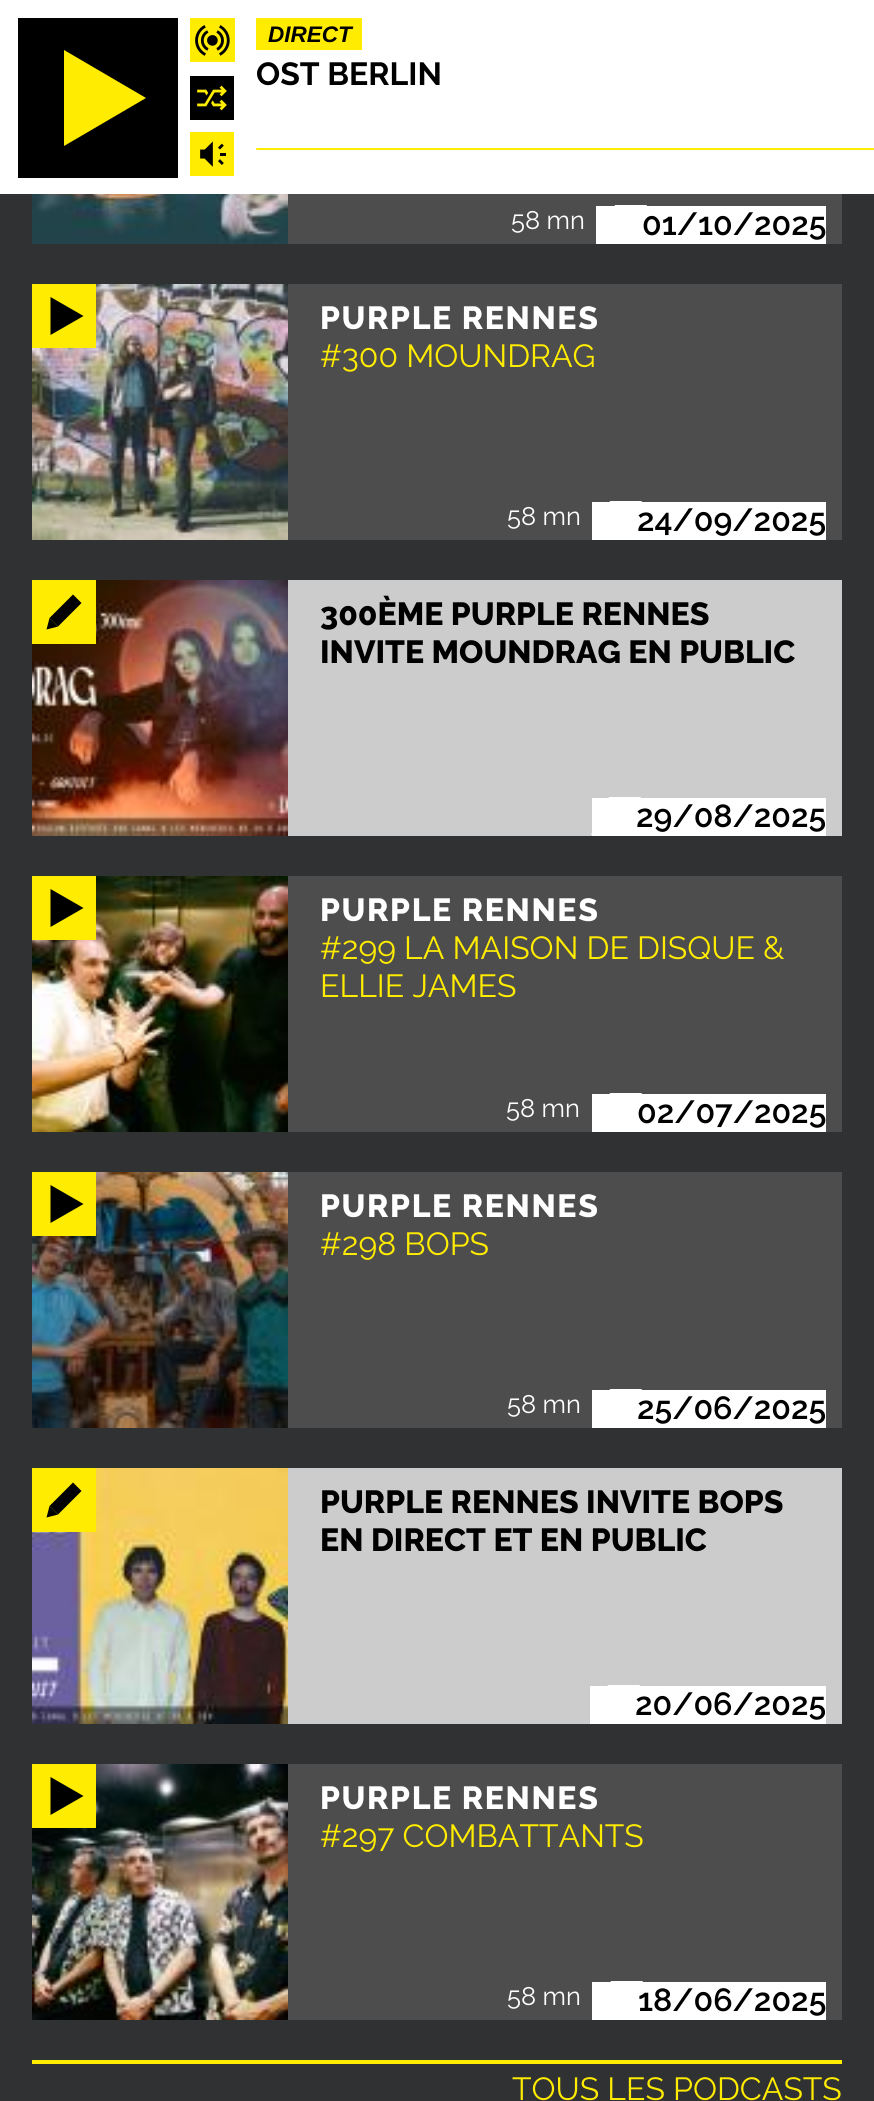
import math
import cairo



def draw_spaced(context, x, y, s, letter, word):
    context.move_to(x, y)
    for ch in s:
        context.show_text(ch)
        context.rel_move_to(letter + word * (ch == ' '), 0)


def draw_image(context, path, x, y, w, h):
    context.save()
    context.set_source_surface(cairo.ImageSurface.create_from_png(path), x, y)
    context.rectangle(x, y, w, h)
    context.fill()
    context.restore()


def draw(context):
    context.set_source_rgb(48 / 255, 49 / 255, 51 / 255)
    context.paint()
    context.set_source_rgb(1, 1, 1)
    context.rectangle(0, 0, 874, 194)
    context.fill()
    context.set_source_rgb(0, 0, 0)
    context.rectangle(18, 18, 160, 160)
    context.fill()
    context.set_source_rgb(1, 236 / 255, 0)
    context.new_path()
    context.move_to(64, 50)
    context.line_to(146, 98)
    context.line_to(64, 146)
    context.close_path()
    context.fill()
    draw_image(context, "images/1.png", 190, 18, 45, 44)
    draw_image(context, "images/2.png", 190, 76, 44, 44)
    draw_image(context, "images/3.png", 190, 132, 44, 44)
    context.set_source_rgb(1, 236 / 255, 1 / 255)
    context.rectangle(256, 18, 106, 32)
    context.fill()
    draw_image(context, "images/4.png", 256, 148, 618, 2)
    context.set_source_rgb(77 / 255, 77 / 255, 77 / 255)
    context.rectangle(288, 194, 554, 50)
    context.fill()
    draw_image(context, "images/5.png", 32, 194, 256, 50)
    context.set_source_rgb(1, 1, 1)
    context.rectangle(596, 206, 230, 38)
    context.fill()
    context.set_source_rgb(77 / 255, 77 / 255, 77 / 255)
    context.rectangle(288, 284, 554, 256)
    context.fill()
    draw_image(context, "images/6.png", 32, 284, 256, 256)
    context.set_source_rgb(1, 236 / 255, 0)
    context.rectangle(32, 284, 64, 64)
    context.fill()
    context.set_source_rgb(0, 0, 0)
    context.new_path()
    context.move_to(50.5, 297)
    context.line_to(83.5, 316)
    context.line_to(50.5, 335)
    context.close_path()
    context.fill()
    context.set_source_rgb(1, 1, 1)
    context.rectangle(592, 502, 234, 38)
    context.fill()
    context.set_source_rgb(204 / 255, 204 / 255, 204 / 255)
    context.rectangle(288, 580, 554, 256)
    context.fill()
    draw_image(context, "images/7.png", 32, 580, 256, 256)
    context.set_source_rgb(1, 236 / 255, 0)
    context.rectangle(32, 580, 64, 64)
    context.fill()
    context.set_source_rgb(0, 0, 0)
    context.new_path()
    context.move_to(46.5, 629.5)
    context.line_to(58, 626.5)
    context.line_to(49.5, 618)
    context.close_path()
    context.fill()
    context.new_path()
    context.move_to(49.5, 618)
    context.line_to(73, 594.5)
    context.line_to(81.5, 603)
    context.line_to(58, 626.5)
    context.close_path()
    context.fill()
    context.set_source_rgb(1, 1, 1)
    context.rectangle(592, 798, 234, 38)
    context.fill()
    context.set_source_rgb(77 / 255, 77 / 255, 77 / 255)
    context.rectangle(288, 876, 554, 256)
    context.fill()
    draw_image(context, "images/8.png", 32, 876, 256, 256)
    context.set_source_rgb(1, 236 / 255, 0)
    context.rectangle(32, 876, 64, 64)
    context.fill()
    context.set_source_rgb(0, 0, 0)
    context.new_path()
    context.move_to(50.5, 889)
    context.line_to(83.5, 908)
    context.line_to(50.5, 927)
    context.close_path()
    context.fill()
    context.set_source_rgb(1, 1, 1)
    context.rectangle(592, 1094, 234, 38)
    context.fill()
    context.set_source_rgb(77 / 255, 77 / 255, 77 / 255)
    context.rectangle(288, 1172, 554, 256)
    context.fill()
    draw_image(context, "images/9.png", 32, 1172, 256, 256)
    context.set_source_rgb(1, 236 / 255, 0)
    context.rectangle(32, 1172, 64, 64)
    context.fill()
    context.set_source_rgb(0, 0, 0)
    context.new_path()
    context.move_to(50.5, 1185)
    context.line_to(83.5, 1204)
    context.line_to(50.5, 1223)
    context.close_path()
    context.fill()
    context.set_source_rgb(1, 1, 1)
    context.rectangle(592, 1390, 234, 38)
    context.fill()
    context.set_source_rgb(204 / 255, 204 / 255, 204 / 255)
    context.rectangle(288, 1468, 554, 256)
    context.fill()
    draw_image(context, "images/10.png", 32, 1468, 256, 256)
    context.set_source_rgb(1, 236 / 255, 0)
    context.rectangle(32, 1468, 64, 64)
    context.fill()
    context.set_source_rgb(0, 0, 0)
    context.new_path()
    context.move_to(46.5, 1517.5)
    context.line_to(58, 1514.5)
    context.line_to(49.5, 1506)
    context.close_path()
    context.fill()
    context.new_path()
    context.move_to(49.5, 1506)
    context.line_to(73, 1482.5)
    context.line_to(81.5, 1491)
    context.line_to(58, 1514.5)
    context.close_path()
    context.fill()
    context.set_source_rgb(1, 1, 1)
    context.rectangle(590, 1686, 236, 38)
    context.fill()
    context.set_source_rgb(77 / 255, 77 / 255, 77 / 255)
    context.rectangle(288, 1764, 554, 256)
    context.fill()
    draw_image(context, "images/11.png", 32, 1764, 256, 256)
    context.set_source_rgb(1, 236 / 255, 0)
    context.rectangle(32, 1764, 64, 64)
    context.fill()
    context.set_source_rgb(0, 0, 0)
    context.new_path()
    context.move_to(50.5, 1777)
    context.line_to(83.5, 1796)
    context.line_to(50.5, 1815)
    context.close_path()
    context.fill()
    context.set_source_rgb(1, 1, 1)
    context.rectangle(592, 1982, 234, 38)
    context.fill()
    context.set_source_rgb(1, 236 / 255, 1 / 255)
    context.rectangle(32, 2060, 810, 4)
    context.fill()
    context.select_font_face("Liberation Sans", cairo.FontSlant.ITALIC, cairo.FontWeight.BOLD)
    context.set_font_size(22.5)
    context.set_source_rgb(0, 0, 0)
    context.move_to(268, 42)
    context.show_text("DIRECT")
    context.select_font_face("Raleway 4 Thin")
    context.set_font_size(32)
    context.move_to(256, 85)
    context.show_text("OST BERLIN")
    context.select_font_face("Raleway Thin")
    context.set_font_size(25.5)
    context.set_source_rgb(1, 1, 1)
    context.move_to(511, 229)
    context.show_text("58 mn")
    context.select_font_face("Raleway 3 Thin")
    context.set_font_size(32)
    context.set_source_rgb(0, 0, 0)
    context.move_to(642, 235)
    context.show_text("01/10/2025")
    context.set_source_rgb(1, 1, 1)
    context.new_path()
    context.move_to(615, 205)
    context.line_to(647, 205)
    context.line_to(629, 243)
    context.line_to(597, 243)
    context.close_path()
    context.fill()
    context.select_font_face("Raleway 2 Thin")
    draw_spaced(context, 320, 329, "PURPLE RENNES", 1.6, 0)
    context.select_font_face("Raleway Thin")
    context.set_source_rgb(1, 236 / 255, 1 / 255)
    context.move_to(320, 367)
    context.show_text("#300 MOUNDRAG")
    context.set_font_size(25.5)
    context.set_source_rgb(1, 1, 1)
    context.move_to(507, 525)
    context.show_text("58 mn")
    context.select_font_face("Raleway 3 Thin")
    context.set_font_size(32)
    context.set_source_rgb(0, 0, 0)
    context.move_to(637, 531)
    context.show_text("24/09/2025")
    context.set_source_rgb(1, 1, 1)
    context.new_path()
    context.move_to(610, 501)
    context.line_to(642, 501)
    context.line_to(624, 539)
    context.line_to(592, 539)
    context.close_path()
    context.fill()
    context.select_font_face("Raleway 2 Thin")
    context.set_source_rgb(0, 0, 0)
    context.move_to(320, 625)
    context.show_text("300ÈME PURPLE RENNES")
    context.move_to(320, 663)
    context.show_text("INVITE MOUNDRAG EN PUBLIC")
    context.select_font_face("Raleway 3 Thin")
    context.move_to(636, 827)
    context.show_text("29/08/2025")
    context.set_source_rgb(1, 1, 1)
    context.new_path()
    context.move_to(609, 797)
    context.line_to(641, 797)
    context.line_to(623, 835)
    context.line_to(591, 835)
    context.close_path()
    context.fill()
    context.select_font_face("Raleway 2 Thin")
    draw_spaced(context, 320, 921, "PURPLE RENNES", 1.6, 0)
    context.select_font_face("Raleway Thin")
    context.set_source_rgb(1, 236 / 255, 1 / 255)
    context.move_to(320, 959)
    context.show_text("#299 LA MAISON DE DISQUE &")
    context.move_to(320, 997)
    context.show_text("ELLIE JAMES")
    context.set_font_size(25.5)
    context.set_source_rgb(1, 1, 1)
    context.move_to(506, 1117)
    context.show_text("58 mn")
    context.select_font_face("Raleway 3 Thin")
    context.set_font_size(32)
    context.set_source_rgb(0, 0, 0)
    context.move_to(637, 1123)
    context.show_text("02/07/2025")
    context.set_source_rgb(1, 1, 1)
    context.new_path()
    context.move_to(610, 1093)
    context.line_to(642, 1093)
    context.line_to(624, 1131)
    context.line_to(592, 1131)
    context.close_path()
    context.fill()
    context.select_font_face("Raleway 2 Thin")
    draw_spaced(context, 320, 1217, "PURPLE RENNES", 1.6, 0)
    context.select_font_face("Raleway Thin")
    context.set_source_rgb(1, 236 / 255, 1 / 255)
    context.move_to(320, 1255)
    context.show_text("#298 BOPS")
    context.set_font_size(25.5)
    context.set_source_rgb(1, 1, 1)
    context.move_to(507, 1413)
    context.show_text("58 mn")
    context.select_font_face("Raleway 3 Thin")
    context.set_font_size(32)
    context.set_source_rgb(0, 0, 0)
    context.move_to(637, 1419)
    context.show_text("25/06/2025")
    context.set_source_rgb(1, 1, 1)
    context.new_path()
    context.move_to(610, 1389)
    context.line_to(642, 1389)
    context.line_to(624, 1427)
    context.line_to(592, 1427)
    context.close_path()
    context.fill()
    context.select_font_face("Raleway 2 Thin")
    context.set_source_rgb(0, 0, 0)
    context.move_to(320, 1513)
    context.show_text("PURPLE RENNES INVITE BOPS")
    context.move_to(320, 1551)
    context.show_text("EN DIRECT ET EN PUBLIC")
    context.select_font_face("Raleway 3 Thin")
    context.move_to(635, 1715)
    context.show_text("20/06/2025")
    context.set_source_rgb(1, 1, 1)
    context.new_path()
    context.move_to(608, 1685)
    context.line_to(640, 1685)
    context.line_to(622, 1723)
    context.line_to(590, 1723)
    context.close_path()
    context.fill()
    context.select_font_face("Raleway 2 Thin")
    draw_spaced(context, 320, 1809, "PURPLE RENNES", 1.6, 0)
    context.select_font_face("Raleway Thin")
    context.set_source_rgb(1, 236 / 255, 1 / 255)
    context.move_to(320, 1847)
    context.show_text("#297 COMBATTANTS")
    context.set_font_size(25.5)
    context.set_source_rgb(1, 1, 1)
    context.move_to(507, 2005)
    context.show_text("58 mn")
    context.select_font_face("Raleway 3 Thin")
    context.set_font_size(32)
    context.set_source_rgb(0, 0, 0)
    context.move_to(638, 2011)
    context.show_text("18/06/2025")
    context.set_source_rgb(1, 1, 1)
    context.new_path()
    context.move_to(611, 1981)
    context.line_to(643, 1981)
    context.line_to(625, 2019)
    context.line_to(593, 2019)
    context.close_path()
    context.fill()
    context.select_font_face("Raleway Thin")
    context.set_source_rgb(1, 236 / 255, 1 / 255)
    context.move_to(512, 2100)
    context.show_text("TOUS LES PODCASTS")


surface = cairo.ImageSurface(cairo.Format.RGB24, 874, 2101)
context = cairo.Context(surface)
options = cairo.FontOptions()
options.set_hint_metrics(cairo.HintMetrics.OFF)
options.set_hint_style(cairo.HintStyle.NONE)
context.set_font_options(options)
context.set_miter_limit(4)
draw(context)
surface.write_to_png("out.png")
